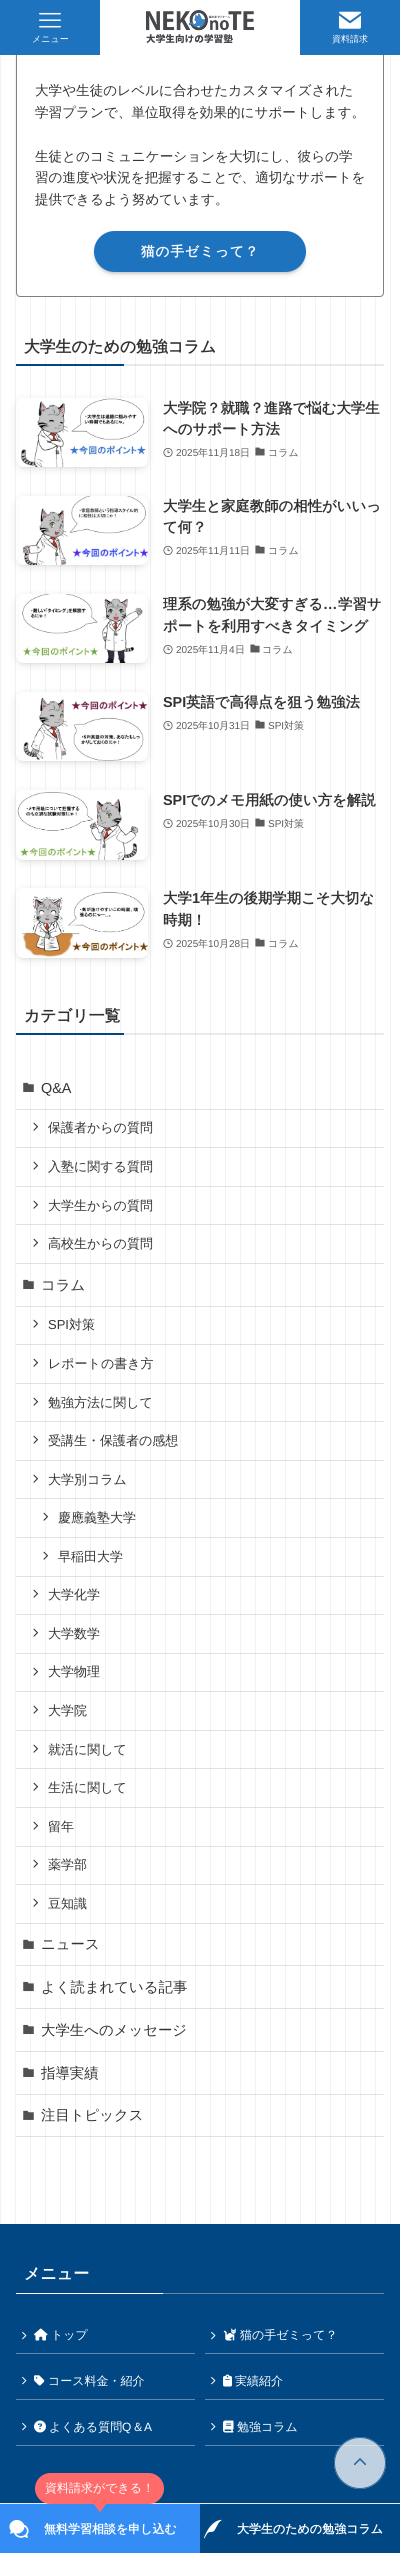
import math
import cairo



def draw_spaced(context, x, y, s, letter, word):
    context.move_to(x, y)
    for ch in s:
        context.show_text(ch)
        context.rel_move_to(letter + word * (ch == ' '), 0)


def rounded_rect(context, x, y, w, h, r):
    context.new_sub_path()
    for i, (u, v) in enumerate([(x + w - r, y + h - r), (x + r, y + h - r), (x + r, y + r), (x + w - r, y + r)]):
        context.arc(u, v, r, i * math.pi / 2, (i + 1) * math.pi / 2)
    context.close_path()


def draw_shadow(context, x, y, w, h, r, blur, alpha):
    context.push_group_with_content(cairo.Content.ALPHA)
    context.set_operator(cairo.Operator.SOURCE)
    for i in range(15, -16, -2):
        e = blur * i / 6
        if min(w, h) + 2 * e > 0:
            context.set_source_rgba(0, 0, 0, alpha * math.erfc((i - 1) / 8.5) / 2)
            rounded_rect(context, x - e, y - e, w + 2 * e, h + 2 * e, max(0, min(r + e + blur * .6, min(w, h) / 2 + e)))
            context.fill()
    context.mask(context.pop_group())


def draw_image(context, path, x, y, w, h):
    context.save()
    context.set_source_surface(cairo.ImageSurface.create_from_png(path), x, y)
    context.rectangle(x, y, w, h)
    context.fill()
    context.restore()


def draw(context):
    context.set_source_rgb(1, 1, 1)
    context.paint()
    draw_image(context, "images/1.png", 0, 55, 391, 2169)
    context.set_source_rgb(1, 1, 1)
    rounded_rect(context, 16.5, -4.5, 367, 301, 3.5)
    context.fill_preserve()
    context.set_source_rgb(128 / 255, 128 / 255, 128 / 255)
    context.set_line_width(1)
    context.stroke()
    context.set_source_rgb(30 / 255, 115 / 255, 190 / 255)
    context.rectangle(0, 0, 100, 55)
    context.fill()
    draw_image(context, "images/2.png", 39, 12, 22, 16)
    draw_image(context, "images/3.png", 146, 10, 108, 34)
    context.rectangle(300, 0, 100, 55)
    context.fill()
    draw_image(context, "images/4.png", 339, 11, 22, 18)
    context.set_source_rgb(0, 0, 0)
    draw_shadow(context, 98, 239, 204, 33, 16.5, 4, 0.2)
    draw_shadow(context, 94, 233, 212, 41, 20.5, 1, 0.1)
    context.set_source_rgb(30 / 255, 115 / 255, 190 / 255)
    rounded_rect(context, 94, 231, 212, 41, 20.5)
    context.fill()
    context.set_source_rgb(0, 71 / 255, 132 / 255)
    context.rectangle(16, 364, 108, 2)
    context.fill()
    context.set_source_rgba(150 / 255, 150 / 255, 150 / 255, 0.2)
    context.rectangle(124, 364, 260, 2)
    context.fill()
    context.set_source_rgb(0, 0, 0)
    draw_shadow(context, 20, 406, 124, 61, 4, 2, 0.1)
    context.save()
    context.set_fill_rule(cairo.FillRule.EVEN_ODD)
    context.new_path()
    context.move_to(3, 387)
    context.line_to(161, 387)
    context.line_to(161, 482)
    context.line_to(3, 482)
    context.close_path()
    context.move_to(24, 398)
    context.line_to(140, 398)
    context.curve_to(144.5, 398, 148, 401.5, 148, 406)
    context.line_to(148, 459)
    context.curve_to(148, 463.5, 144.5, 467, 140, 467)
    context.line_to(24, 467)
    context.curve_to(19.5, 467, 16, 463.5, 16, 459)
    context.line_to(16, 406)
    context.curve_to(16, 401.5, 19.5, 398, 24, 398)
    context.close_path()
    context.clip()
    draw_shadow(context, 16, 400, 132, 69, 8, 4, 0.1)
    context.restore()
    draw_image(context, "images/5.png", 19, 398, 127, 69)
    draw_image(context, "images/6.png", 163, 447, 10, 11)
    draw_image(context, "images/7.png", 255, 447, 10, 9)
    draw_shadow(context, 20, 504, 124, 61, 4, 2, 0.1)
    context.save()
    context.set_fill_rule(cairo.FillRule.EVEN_ODD)
    context.new_path()
    context.move_to(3, 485)
    context.line_to(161, 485)
    context.line_to(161, 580)
    context.line_to(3, 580)
    context.close_path()
    context.move_to(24, 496)
    context.line_to(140, 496)
    context.curve_to(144.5, 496, 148, 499.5, 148, 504)
    context.line_to(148, 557)
    context.curve_to(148, 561.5, 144.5, 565, 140, 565)
    context.line_to(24, 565)
    context.curve_to(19.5, 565, 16, 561.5, 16, 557)
    context.line_to(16, 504)
    context.curve_to(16, 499.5, 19.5, 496, 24, 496)
    context.close_path()
    context.clip()
    draw_shadow(context, 16, 498, 132, 69, 8, 4, 0.1)
    context.restore()
    draw_image(context, "images/8.png", 19, 496, 129, 69)
    draw_image(context, "images/6.png", 163, 545, 10, 11)
    draw_image(context, "images/7.png", 255, 545, 10, 9)
    draw_shadow(context, 20, 602, 124, 61, 4, 2, 0.1)
    context.save()
    context.set_fill_rule(cairo.FillRule.EVEN_ODD)
    context.new_path()
    context.move_to(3, 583)
    context.line_to(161, 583)
    context.line_to(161, 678)
    context.line_to(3, 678)
    context.close_path()
    context.move_to(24, 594)
    context.line_to(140, 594)
    context.curve_to(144.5, 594, 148, 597.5, 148, 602)
    context.line_to(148, 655)
    context.curve_to(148, 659.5, 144.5, 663, 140, 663)
    context.line_to(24, 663)
    context.curve_to(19.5, 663, 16, 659.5, 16, 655)
    context.line_to(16, 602)
    context.curve_to(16, 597.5, 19.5, 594, 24, 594)
    context.close_path()
    context.clip()
    draw_shadow(context, 16, 596, 132, 69, 8, 4, 0.1)
    context.restore()
    draw_image(context, "images/9.png", 19, 594, 126, 69)
    draw_image(context, "images/6.png", 163, 644, 10, 11)
    draw_image(context, "images/10.png", 250, 644, 10, 9)
    draw_shadow(context, 20, 700, 124, 61, 4, 2, 0.1)
    context.save()
    context.set_fill_rule(cairo.FillRule.EVEN_ODD)
    context.new_path()
    context.move_to(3, 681)
    context.line_to(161, 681)
    context.line_to(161, 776)
    context.line_to(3, 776)
    context.close_path()
    context.move_to(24, 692)
    context.line_to(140, 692)
    context.curve_to(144.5, 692, 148, 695.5, 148, 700)
    context.line_to(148, 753)
    context.curve_to(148, 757.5, 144.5, 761, 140, 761)
    context.line_to(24, 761)
    context.curve_to(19.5, 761, 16, 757.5, 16, 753)
    context.line_to(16, 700)
    context.curve_to(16, 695.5, 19.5, 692, 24, 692)
    context.close_path()
    context.clip()
    draw_shadow(context, 16, 694, 132, 69, 8, 4, 0.1)
    context.restore()
    draw_image(context, "images/11.png", 19, 692, 129, 69)
    draw_image(context, "images/6.png", 163, 720, 10, 11)
    draw_image(context, "images/7.png", 255, 720, 10, 9)
    draw_shadow(context, 20, 798, 124, 62, 4, 2, 0.1)
    context.save()
    context.set_fill_rule(cairo.FillRule.EVEN_ODD)
    context.new_path()
    context.move_to(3, 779)
    context.line_to(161, 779)
    context.line_to(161, 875)
    context.line_to(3, 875)
    context.close_path()
    context.move_to(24, 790)
    context.line_to(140, 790)
    context.curve_to(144.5, 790, 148, 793.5, 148, 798)
    context.line_to(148, 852)
    context.curve_to(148, 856.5, 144.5, 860, 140, 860)
    context.line_to(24, 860)
    context.curve_to(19.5, 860, 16, 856.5, 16, 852)
    context.line_to(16, 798)
    context.curve_to(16, 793.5, 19.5, 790, 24, 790)
    context.close_path()
    context.clip()
    draw_shadow(context, 16, 792, 132, 70, 8, 4, 0.1)
    context.restore()
    draw_image(context, "images/12.png", 17, 790, 128, 70)
    draw_image(context, "images/6.png", 163, 818, 10, 11)
    draw_image(context, "images/7.png", 255, 818, 10, 9)
    draw_shadow(context, 20, 896, 124, 62, 4, 2, 0.1)
    context.save()
    context.set_fill_rule(cairo.FillRule.EVEN_ODD)
    context.new_path()
    context.move_to(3, 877)
    context.line_to(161, 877)
    context.line_to(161, 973)
    context.line_to(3, 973)
    context.close_path()
    context.move_to(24, 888)
    context.line_to(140, 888)
    context.curve_to(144.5, 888, 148, 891.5, 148, 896)
    context.line_to(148, 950)
    context.curve_to(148, 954.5, 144.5, 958, 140, 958)
    context.line_to(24, 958)
    context.curve_to(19.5, 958, 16, 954.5, 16, 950)
    context.line_to(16, 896)
    context.curve_to(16, 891.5, 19.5, 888, 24, 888)
    context.close_path()
    context.clip()
    draw_shadow(context, 16, 890, 132, 70, 8, 4, 0.1)
    context.restore()
    draw_image(context, "images/13.png", 19, 888, 129, 70)
    draw_image(context, "images/6.png", 163, 938, 10, 11)
    draw_image(context, "images/7.png", 255, 938, 10, 9)
    context.set_source_rgb(0, 71 / 255, 132 / 255)
    context.rectangle(16, 1033, 108, 2)
    context.fill()
    context.set_source_rgba(150 / 255, 150 / 255, 150 / 255, 0.2)
    context.rectangle(124, 1033, 260, 2)
    context.fill()
    context.set_source_rgba(199 / 255, 199 / 255, 199 / 255, 0.5)
    context.rectangle(16, 1109, 368, 1)
    context.fill()
    draw_image(context, "images/14.png", 23, 1082, 11, 10)
    context.rectangle(16, 1147, 368, 1)
    context.fill()
    draw_image(context, "images/15.png", 33, 1122, 5, 9)
    context.rectangle(16, 1186, 368, 1)
    context.fill()
    draw_image(context, "images/15.png", 33, 1161, 5, 9)
    context.rectangle(16, 1224, 368, 1)
    context.fill()
    draw_image(context, "images/15.png", 33, 1200, 5, 9)
    context.rectangle(16, 1263, 368, 1)
    context.fill()
    draw_image(context, "images/15.png", 33, 1238, 5, 9)
    context.rectangle(16, 1306, 368, 1)
    context.fill()
    draw_image(context, "images/14.png", 23, 1279, 11, 10)
    context.rectangle(16, 1344, 368, 1)
    context.fill()
    draw_image(context, "images/15.png", 33, 1319, 5, 9)
    context.rectangle(16, 1383, 368, 1)
    context.fill()
    draw_image(context, "images/15.png", 33, 1358, 5, 9)
    context.rectangle(16, 1421, 368, 1)
    context.fill()
    draw_image(context, "images/15.png", 33, 1397, 5, 9)
    context.rectangle(16, 1460, 368, 1)
    context.fill()
    draw_image(context, "images/15.png", 33, 1435, 5, 9)
    context.rectangle(16, 1498, 368, 1)
    context.fill()
    draw_image(context, "images/15.png", 33, 1474, 5, 9)
    context.rectangle(16, 1537, 368, 1)
    context.fill()
    draw_image(context, "images/16.png", 43, 1512, 5, 9)
    context.rectangle(16, 1576, 368, 1)
    context.fill()
    draw_image(context, "images/16.png", 43, 1551, 5, 9)
    context.rectangle(16, 1614, 368, 1)
    context.fill()
    draw_image(context, "images/15.png", 33, 1589, 5, 9)
    context.rectangle(16, 1653, 368, 1)
    context.fill()
    draw_image(context, "images/15.png", 33, 1628, 5, 9)
    context.rectangle(16, 1691, 368, 1)
    context.fill()
    draw_image(context, "images/15.png", 33, 1667, 5, 9)
    context.rectangle(16, 1730, 368, 1)
    context.fill()
    draw_image(context, "images/15.png", 33, 1705, 5, 9)
    context.rectangle(16, 1768, 368, 1)
    context.fill()
    draw_image(context, "images/15.png", 33, 1744, 5, 9)
    context.rectangle(16, 1807, 368, 1)
    context.fill()
    draw_image(context, "images/15.png", 33, 1782, 5, 9)
    context.rectangle(16, 1846, 368, 1)
    context.fill()
    draw_image(context, "images/15.png", 33, 1821, 5, 9)
    context.rectangle(16, 1884, 368, 1)
    context.fill()
    draw_image(context, "images/15.png", 33, 1859, 5, 9)
    context.rectangle(16, 1923, 368, 1)
    context.fill()
    draw_image(context, "images/15.png", 33, 1898, 5, 9)
    context.rectangle(16, 1965, 368, 1)
    context.fill()
    draw_image(context, "images/17.png", 23, 1939, 11, 10)
    context.rectangle(16, 2008, 368, 1)
    context.fill()
    draw_image(context, "images/18.png", 23, 1981, 11, 11)
    context.rectangle(16, 2051, 368, 1)
    context.fill()
    draw_image(context, "images/19.png", 23, 2024, 11, 10)
    context.rectangle(16, 2094, 368, 1)
    context.fill()
    draw_image(context, "images/14.png", 23, 2067, 11, 10)
    context.rectangle(16, 2136, 368, 1)
    context.fill()
    draw_image(context, "images/17.png", 23, 2110, 11, 10)
    context.set_source_rgb(0, 71 / 255, 132 / 255)
    context.rectangle(0, 2224, 400, 280)
    context.fill()
    context.set_source_rgb(1, 1, 1)
    context.rectangle(16, 2293, 147, 1)
    context.fill()
    context.set_source_rgb(100 / 255, 135 / 255, 166 / 255)
    context.rectangle(163, 2293, 221, 1)
    context.fill()
    context.rectangle(16, 2353, 179, 1)
    context.fill()
    draw_image(context, "images/20.png", 22, 2332, 5, 8)
    draw_image(context, "images/21.png", 34, 2328, 14, 13)
    context.rectangle(205, 2353, 179, 1)
    context.fill()
    draw_image(context, "images/20.png", 211, 2332, 5, 8)
    draw_image(context, "images/22.png", 223, 2328, 13, 13)
    context.rectangle(16, 2399, 179, 1)
    context.fill()
    draw_image(context, "images/20.png", 22, 2377, 5, 8)
    draw_image(context, "images/23.png", 34, 2375, 11, 11)
    context.rectangle(205, 2399, 179, 1)
    context.fill()
    draw_image(context, "images/20.png", 211, 2377, 5, 8)
    draw_image(context, "images/24.png", 223, 2374, 9, 13)
    context.rectangle(16, 2445, 179, 1)
    context.fill()
    draw_image(context, "images/20.png", 22, 2423, 5, 8)
    draw_image(context, "images/25.png", 34, 2420, 12, 13)
    context.rectangle(205, 2445, 179, 1)
    context.fill()
    draw_image(context, "images/20.png", 211, 2423, 5, 8)
    draw_image(context, "images/26.png", 223, 2420, 11, 13)
    context.set_source_rgba(1, 1, 1, 0.75)
    context.arc(360, 2463, 26, 0, 2 * math.pi)
    context.fill()
    context.arc(360, 2463, 25.5, 0, 2 * math.pi)
    context.set_source_rgba(0, 71 / 255, 132 / 255, 0.75)
    context.stroke()
    draw_image(context, "images/27.png", 353, 2458, 14, 8)
    context.set_source_rgb(0, 0, 0)
    draw_shadow(context, 0, 2503, 400, 50, 0, 2, 0.1)
    context.set_source_rgba(1, 1, 1, 0.9)
    context.rectangle(0, 2503, 400, 1)
    context.fill()
    context.set_source_rgb(1, 107 / 255, 107 / 255)
    rounded_rect(context, 35, 2473, 129, 31, 15.5)
    context.fill()
    context.set_source_rgb(51 / 255, 141 / 255, 244 / 255)
    context.rectangle(0, 2504, 200, 49)
    context.fill()
    context.set_source_rgb(1, 107 / 255, 107 / 255)
    context.new_path()
    context.move_to(92, 2502)
    context.line_to(108, 2502)
    context.line_to(100, 2512)
    context.close_path()
    context.fill()
    draw_image(context, "images/28.png", 9, 2520, 20, 18)
    context.set_source_rgb(0, 71 / 255, 132 / 255)
    context.rectangle(200, 2504, 200, 49)
    context.fill()
    draw_image(context, "images/29.png", 203, 2519, 19, 20)
    context.select_font_face("WenQuanYi Zen Hei Medium")
    context.set_font_size(9)
    context.set_source_rgb(1, 1, 1)
    context.move_to(32, 42)
    context.show_text("メニュー")
    context.move_to(332, 42)
    context.show_text("資料請求")
    context.set_font_size(13.6)
    context.set_source_rgb(51 / 255, 51 / 255, 51 / 255)
    context.move_to(35, 95)
    context.show_text("大学や生徒のレベルに合わせたカスタマイズされた")
    context.move_to(35, 117)
    context.show_text("学習プランで、単位取得を効果的にサポートします。")
    context.move_to(35, 161)
    context.show_text("生徒とのコミュニケーションを大切にし、彼らの学")
    context.move_to(35, 182)
    context.show_text("習の進度や状況を把握することで、適切なサポートを")
    context.move_to(35, 204)
    context.show_text("提供できるよう努めています。")
    context.select_font_face("WenQuanYi Zen Hei", cairo.FontSlant.NORMAL, cairo.FontWeight.BOLD)
    context.set_source_rgb(1, 1, 1)
    draw_spaced(context, 141, 256, "猫の手ゼミって？", 1, 0)
    context.set_font_size(15.8)
    context.set_source_rgb(51 / 255, 51 / 255, 51 / 255)
    context.move_to(24, 352)
    context.show_text("大学生のための勉強コラム")
    context.set_font_size(14.4)
    context.move_to(163, 413)
    context.show_text("大学院？就職？進路で悩む大学生")
    context.move_to(163, 434)
    context.show_text("へのサポート方法")
    context.select_font_face("Liberation Sans")
    context.set_font_size(10)
    context.set_source_rgb(92 / 255, 92 / 255, 92 / 255)
    context.move_to(176, 456)
    context.show_text("2025")
    context.select_font_face("WenQuanYi Zen Hei Medium")
    context.move_to(198, 456)
    context.show_text("年")
    context.select_font_face("Liberation Sans")
    context.move_to(208, 456)
    context.show_text("11")
    context.select_font_face("WenQuanYi Zen Hei Medium")
    context.move_to(219, 456)
    context.show_text("月")
    context.select_font_face("Liberation Sans")
    context.move_to(229, 456)
    context.show_text("18")
    context.select_font_face("WenQuanYi Zen Hei Medium")
    context.move_to(240, 456)
    context.show_text("日")
    context.move_to(268, 456)
    context.show_text("コラム")
    context.select_font_face("WenQuanYi Zen Hei", cairo.FontSlant.NORMAL, cairo.FontWeight.BOLD)
    context.set_font_size(14.4)
    context.set_source_rgb(51 / 255, 51 / 255, 51 / 255)
    context.move_to(163, 511)
    context.show_text("大学生と家庭教師の相性がいいっ")
    context.move_to(163, 532)
    context.show_text("て何？")
    context.select_font_face("Liberation Sans")
    context.set_font_size(10)
    context.set_source_rgb(92 / 255, 92 / 255, 92 / 255)
    context.move_to(176, 554)
    context.show_text("2025")
    context.select_font_face("WenQuanYi Zen Hei Medium")
    context.move_to(198, 554)
    context.show_text("年")
    context.select_font_face("Liberation Sans")
    context.move_to(208, 554)
    context.show_text("11")
    context.select_font_face("WenQuanYi Zen Hei Medium")
    context.move_to(219, 554)
    context.show_text("月")
    context.select_font_face("Liberation Sans")
    context.move_to(229, 554)
    context.show_text("11")
    context.select_font_face("WenQuanYi Zen Hei Medium")
    context.move_to(240, 554)
    context.show_text("日")
    context.move_to(268, 554)
    context.show_text("コラム")
    context.select_font_face("WenQuanYi Zen Hei", cairo.FontSlant.NORMAL, cairo.FontWeight.BOLD)
    context.set_font_size(14.4)
    context.set_source_rgb(51 / 255, 51 / 255, 51 / 255)
    context.move_to(163, 609)
    context.show_text("理系の勉強が大変すぎる")
    context.select_font_face("Liberation Sans", cairo.FontSlant.NORMAL, cairo.FontWeight.BOLD)
    context.move_to(323, 609)
    context.show_text("…")
    context.select_font_face("WenQuanYi Zen Hei", cairo.FontSlant.NORMAL, cairo.FontWeight.BOLD)
    context.move_to(338, 609)
    context.show_text("学習サ")
    context.move_to(163, 631)
    context.show_text("ポートを利用すべきタイミング")
    context.select_font_face("Liberation Sans")
    context.set_font_size(10)
    context.set_source_rgb(92 / 255, 92 / 255, 92 / 255)
    context.move_to(176, 653)
    context.show_text("2025")
    context.select_font_face("WenQuanYi Zen Hei Medium")
    context.move_to(198, 653)
    context.show_text("年")
    context.select_font_face("Liberation Sans")
    context.move_to(208, 653)
    context.show_text("11")
    context.select_font_face("WenQuanYi Zen Hei Medium")
    context.move_to(219, 653)
    context.show_text("月")
    context.select_font_face("Liberation Sans")
    context.move_to(229, 653)
    context.show_text("4")
    context.select_font_face("WenQuanYi Zen Hei Medium")
    context.move_to(235, 653)
    context.show_text("日")
    context.move_to(262, 653)
    context.show_text("コラム")
    context.select_font_face("Liberation Sans", cairo.FontSlant.NORMAL, cairo.FontWeight.BOLD)
    context.set_font_size(14.4)
    context.set_source_rgb(51 / 255, 51 / 255, 51 / 255)
    context.move_to(163, 707)
    context.show_text("SPI")
    context.select_font_face("WenQuanYi Zen Hei", cairo.FontSlant.NORMAL, cairo.FontWeight.BOLD)
    context.move_to(186, 707)
    context.show_text("英語で高得点を狙う勉強法")
    context.select_font_face("Liberation Sans")
    context.set_font_size(10)
    context.set_source_rgb(92 / 255, 92 / 255, 92 / 255)
    context.move_to(176, 729)
    context.show_text("2025")
    context.select_font_face("WenQuanYi Zen Hei Medium")
    context.move_to(198, 729)
    context.show_text("年")
    context.select_font_face("Liberation Sans")
    context.move_to(208, 729)
    context.show_text("10")
    context.select_font_face("WenQuanYi Zen Hei Medium")
    context.move_to(219, 729)
    context.show_text("月")
    context.select_font_face("Liberation Sans")
    context.move_to(229, 729)
    context.show_text("31")
    context.select_font_face("WenQuanYi Zen Hei Medium")
    context.move_to(240, 729)
    context.show_text("日")
    context.select_font_face("Liberation Sans")
    context.move_to(268, 729)
    context.show_text("SPI")
    context.select_font_face("WenQuanYi Zen Hei Medium")
    context.move_to(284, 729)
    context.show_text("対策")
    context.select_font_face("Liberation Sans", cairo.FontSlant.NORMAL, cairo.FontWeight.BOLD)
    context.set_font_size(14.4)
    context.set_source_rgb(51 / 255, 51 / 255, 51 / 255)
    context.move_to(163, 805)
    context.show_text("SPI")
    context.select_font_face("WenQuanYi Zen Hei", cairo.FontSlant.NORMAL, cairo.FontWeight.BOLD)
    context.move_to(186, 805)
    context.show_text("でのメモ用紙の使い方を解説")
    context.select_font_face("Liberation Sans")
    context.set_font_size(10)
    context.set_source_rgb(92 / 255, 92 / 255, 92 / 255)
    context.move_to(176, 827)
    context.show_text("2025")
    context.select_font_face("WenQuanYi Zen Hei Medium")
    context.move_to(198, 827)
    context.show_text("年")
    context.select_font_face("Liberation Sans")
    context.move_to(208, 827)
    context.show_text("10")
    context.select_font_face("WenQuanYi Zen Hei Medium")
    context.move_to(219, 827)
    context.show_text("月")
    context.select_font_face("Liberation Sans")
    context.move_to(229, 827)
    context.show_text("30")
    context.select_font_face("WenQuanYi Zen Hei Medium")
    context.move_to(240, 827)
    context.show_text("日")
    context.select_font_face("Liberation Sans")
    context.move_to(268, 827)
    context.show_text("SPI")
    context.select_font_face("WenQuanYi Zen Hei Medium")
    context.move_to(284, 827)
    context.show_text("対策")
    context.select_font_face("WenQuanYi Zen Hei", cairo.FontSlant.NORMAL, cairo.FontWeight.BOLD)
    context.set_font_size(14.4)
    context.set_source_rgb(51 / 255, 51 / 255, 51 / 255)
    context.move_to(163, 903)
    context.show_text("大学")
    context.select_font_face("Liberation Sans", cairo.FontSlant.NORMAL, cairo.FontWeight.BOLD)
    context.move_to(192, 903)
    context.show_text("1")
    context.select_font_face("WenQuanYi Zen Hei", cairo.FontSlant.NORMAL, cairo.FontWeight.BOLD)
    context.move_to(200, 903)
    context.show_text("年生の後期学期こそ大切な")
    context.move_to(163, 925)
    context.show_text("時期！")
    context.select_font_face("Liberation Sans")
    context.set_font_size(10)
    context.set_source_rgb(92 / 255, 92 / 255, 92 / 255)
    context.move_to(176, 947)
    context.show_text("2025")
    context.select_font_face("WenQuanYi Zen Hei Medium")
    context.move_to(198, 947)
    context.show_text("年")
    context.select_font_face("Liberation Sans")
    context.move_to(208, 947)
    context.show_text("10")
    context.select_font_face("WenQuanYi Zen Hei Medium")
    context.move_to(219, 947)
    context.show_text("月")
    context.select_font_face("Liberation Sans")
    context.move_to(229, 947)
    context.show_text("28")
    context.select_font_face("WenQuanYi Zen Hei Medium")
    context.move_to(240, 947)
    context.show_text("日")
    context.move_to(268, 947)
    context.show_text("コラム")
    context.select_font_face("WenQuanYi Zen Hei", cairo.FontSlant.NORMAL, cairo.FontWeight.BOLD)
    context.set_font_size(15.8)
    context.set_source_rgb(51 / 255, 51 / 255, 51 / 255)
    context.move_to(24, 1021)
    context.show_text("カテゴリ一覧")
    context.select_font_face("Liberation Sans")
    context.set_font_size(14.4)
    context.move_to(41, 1093)
    context.show_text("Q&A")
    context.select_font_face("WenQuanYi Zen Hei Medium")
    context.set_font_size(13)
    context.move_to(48, 1132)
    context.show_text("保護者からの質問")
    context.move_to(48, 1171)
    context.show_text("入塾に関する質問")
    context.move_to(48, 1210)
    context.show_text("大学生からの質問")
    context.move_to(48, 1248)
    context.show_text("高校生からの質問")
    context.set_font_size(14.4)
    context.move_to(41, 1290)
    context.show_text("コラム")
    context.select_font_face("Liberation Sans")
    context.set_font_size(13)
    context.move_to(48, 1329)
    context.show_text("SPI")
    context.select_font_face("WenQuanYi Zen Hei Medium")
    context.move_to(69, 1329)
    context.show_text("対策")
    context.move_to(48, 1368)
    context.show_text("レポートの書き方")
    context.move_to(48, 1407)
    context.show_text("勉強方法に関して")
    context.move_to(48, 1445)
    context.show_text("受講生・保護者の感想")
    context.move_to(48, 1484)
    context.show_text("大学別コラム")
    context.move_to(58, 1522)
    context.show_text("慶應義塾大学")
    context.move_to(58, 1561)
    context.show_text("早稲田大学")
    context.move_to(48, 1599)
    context.show_text("大学化学")
    context.move_to(48, 1638)
    context.show_text("大学数学")
    context.move_to(48, 1676)
    context.show_text("大学物理")
    context.move_to(48, 1715)
    context.show_text("大学院")
    context.move_to(48, 1754)
    context.show_text("就活に関して")
    context.move_to(48, 1792)
    context.show_text("生活に関して")
    context.move_to(48, 1831)
    context.show_text("留年")
    context.move_to(48, 1869)
    context.show_text("薬学部")
    context.move_to(48, 1908)
    context.show_text("豆知識")
    context.set_font_size(14.4)
    context.move_to(41, 1949)
    context.show_text("ニュース")
    context.move_to(41, 1992)
    context.show_text("よく読まれている記事")
    context.move_to(41, 2035)
    context.show_text("大学生へのメッセージ")
    context.move_to(41, 2078)
    context.show_text("指導実績")
    context.move_to(41, 2120)
    context.show_text("注目トピックス")
    context.select_font_face("WenQuanYi Zen Hei", cairo.FontSlant.NORMAL, cairo.FontWeight.BOLD)
    context.set_font_size(16)
    context.set_source_rgb(1, 1, 1)
    context.move_to(24, 2279)
    context.show_text("メニュー")
    context.select_font_face("WenQuanYi Zen Hei Medium")
    context.set_font_size(12)
    context.move_to(51, 2339)
    context.show_text("トップ")
    context.move_to(240, 2339)
    context.show_text("猫の手ゼミって？")
    context.move_to(48, 2385)
    context.show_text("コース料金・紹介")
    context.move_to(235, 2385)
    context.show_text("実績紹介")
    context.move_to(49, 2431)
    context.show_text("よくある質問")
    context.select_font_face("Liberation Sans")
    context.move_to(122, 2431)
    context.show_text("Q")
    context.select_font_face("WenQuanYi Zen Hei Medium")
    context.move_to(132, 2431)
    context.show_text("＆")
    context.select_font_face("Liberation Sans")
    context.move_to(144, 2431)
    context.show_text("A")
    context.select_font_face("WenQuanYi Zen Hei Medium")
    context.move_to(237, 2431)
    context.show_text("勉強コラム")
    context.move_to(45, 2492)
    context.show_text("資料請求ができる！")
    context.select_font_face("WenQuanYi Zen Hei", cairo.FontSlant.NORMAL, cairo.FontWeight.BOLD)
    context.move_to(44, 2533)
    context.show_text("無料学習相談を申し込む")
    context.move_to(237, 2533)
    context.show_text("大学生のための勉強コラム")


surface = cairo.ImageSurface(cairo.Format.RGB24, 400, 2553)
context = cairo.Context(surface)
options = cairo.FontOptions()
options.set_hint_metrics(cairo.HintMetrics.OFF)
options.set_hint_style(cairo.HintStyle.NONE)
context.set_font_options(options)
context.set_miter_limit(4)
draw(context)
surface.write_to_png("out.png")
